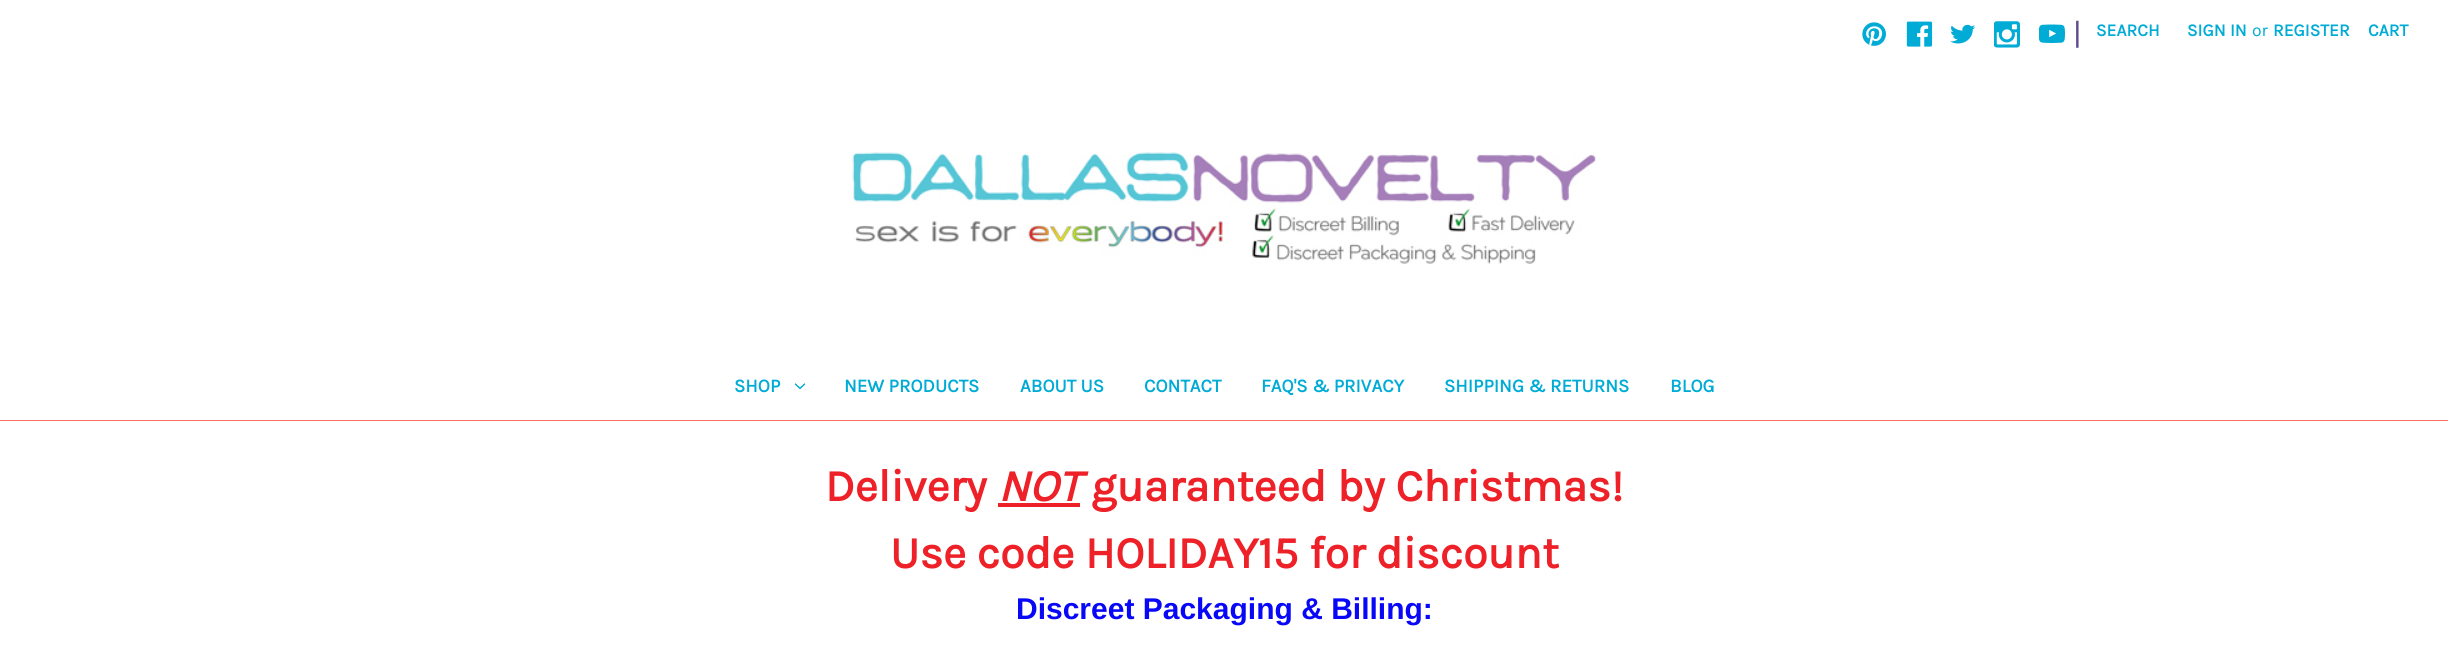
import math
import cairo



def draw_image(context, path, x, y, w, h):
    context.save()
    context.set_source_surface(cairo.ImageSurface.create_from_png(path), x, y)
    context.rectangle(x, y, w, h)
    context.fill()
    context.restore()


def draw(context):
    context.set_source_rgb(1, 1, 1)
    context.paint()
    context.set_source_rgb(1, 112 / 255, 98 / 255)
    context.rectangle(0, 420, 2448, 1)
    context.fill()
    draw_image(context, "images/1.png", 1862, 22, 24, 24)
    draw_image(context, "images/2.png", 1906, 21, 27, 26)
    draw_image(context, "images/3.png", 1950, 24, 26, 20)
    draw_image(context, "images/4.png", 1994, 21, 26, 27)
    draw_image(context, "images/5.png", 2039, 24, 26, 19)
    draw_image(context, "images/6.png", 852, 152, 745, 112)
    draw_image(context, "images/7.png", 795, 383, 10, 7)
    context.set_source_rgb(237 / 255, 33 / 255, 39 / 255)
    context.rectangle(998, 503, 82, 4)
    context.fill()
    context.select_font_face("Karla")
    context.set_font_size(31)
    context.set_source_rgb(95 / 255, 74 / 255, 139 / 255)
    context.move_to(2073, 44)
    context.show_text("|")
    context.select_font_face("Karla", cairo.FontSlant.NORMAL, cairo.FontWeight.BOLD)
    context.set_font_size(17.5)
    context.set_source_rgb(0, 171 / 255, 214 / 255)
    context.move_to(2096, 36)
    context.show_text("SEARCH")
    context.move_to(2187, 36)
    context.show_text("SIGN IN")
    context.select_font_face("Karla")
    context.move_to(2252, 36)
    context.show_text("or")
    context.select_font_face("Karla", cairo.FontSlant.NORMAL, cairo.FontWeight.BOLD)
    context.move_to(2273, 36)
    context.show_text("REGISTER")
    context.move_to(2368, 36)
    context.show_text("CART")
    context.set_font_size(18.75)
    context.move_to(734, 392)
    context.show_text("SHOP")
    context.move_to(844, 392)
    context.show_text("NEW PRODUCTS")
    context.move_to(1020, 392)
    context.show_text("ABOUT US")
    context.move_to(1144, 392)
    context.show_text("CONTACT")
    context.move_to(1261, 392)
    context.show_text("FAQ'S & PRIVACY")
    context.move_to(1444, 392)
    context.show_text("SHIPPING & RETURNS")
    context.move_to(1670, 392)
    context.show_text("BLOG")
    context.set_font_size(45)
    context.set_source_rgb(237 / 255, 33 / 255, 39 / 255)
    context.move_to(825, 501)
    context.show_text("Delivery")
    context.select_font_face("Karla", cairo.FontSlant.ITALIC, cairo.FontWeight.BOLD)
    context.move_to(998, 501)
    context.show_text("NOT")
    context.select_font_face("Karla", cairo.FontSlant.NORMAL, cairo.FontWeight.BOLD)
    context.move_to(1091, 501)
    context.show_text("guaranteed by Christmas!")
    context.move_to(890, 568)
    context.show_text("Use code HOLIDAY15 for discount")
    context.select_font_face("Liberation Sans", cairo.FontSlant.NORMAL, cairo.FontWeight.BOLD)
    context.set_font_size(30)
    context.set_source_rgb(8 / 255, 7 / 255, 247 / 255)
    context.move_to(1016, 619)
    context.show_text("Discreet Packaging & Billing:")


surface = cairo.ImageSurface(cairo.Format.RGB24, 2448, 653)
context = cairo.Context(surface)
options = cairo.FontOptions()
options.set_hint_metrics(cairo.HintMetrics.OFF)
options.set_hint_style(cairo.HintStyle.NONE)
context.set_font_options(options)
context.set_miter_limit(4)
draw(context)
surface.write_to_png("out.png")
